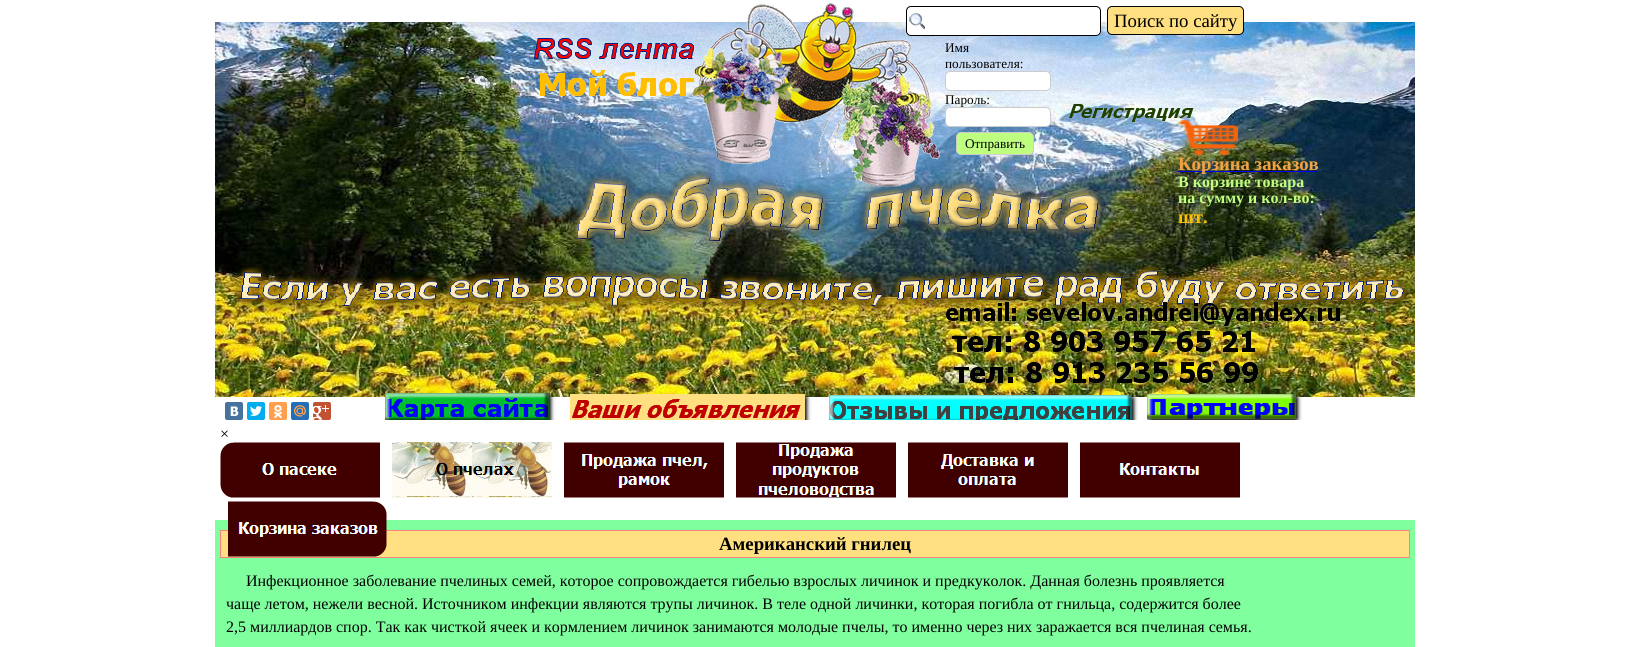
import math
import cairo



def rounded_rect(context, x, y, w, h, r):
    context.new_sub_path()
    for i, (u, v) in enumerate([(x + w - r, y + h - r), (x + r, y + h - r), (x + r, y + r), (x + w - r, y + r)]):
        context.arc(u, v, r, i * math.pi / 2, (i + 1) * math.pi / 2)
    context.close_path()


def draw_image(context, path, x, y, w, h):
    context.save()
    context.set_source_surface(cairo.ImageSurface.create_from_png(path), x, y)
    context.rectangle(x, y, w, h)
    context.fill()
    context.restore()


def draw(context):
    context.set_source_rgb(1, 1, 1)
    context.paint()
    draw_image(context, "images/1.png", 215, 2, 1200, 418)
    context.set_source_rgb(1, 1, 1)
    rounded_rect(context, 906, 6, 195, 30, 5)
    context.fill()
    draw_image(context, "images/2.png", 909, 13, 16, 16)
    rounded_rect(context, 906.5, 6.5, 194, 29, 4.5)
    context.set_source_rgb(0, 0, 0)
    context.set_line_width(1)
    context.stroke()
    context.set_source_rgb(1, 223 / 255, 128 / 255)
    rounded_rect(context, 1107.5, 6.5, 136, 28, 4.5)
    context.fill_preserve()
    context.set_source_rgb(0, 0, 0)
    context.stroke()
    context.set_source_rgb(1, 1, 1)
    rounded_rect(context, 945.5, 71.5, 105, 19, 4.5)
    context.fill_preserve()
    context.set_source_rgb(204 / 255, 204 / 255, 204 / 255)
    context.stroke()
    context.set_source_rgb(1, 1, 1)
    rounded_rect(context, 945.5, 107.5, 105, 19, 4.5)
    context.fill_preserve()
    context.set_source_rgb(204 / 255, 204 / 255, 204 / 255)
    context.stroke()
    context.set_source_rgb(191 / 255, 1, 128 / 255)
    rounded_rect(context, 956.5, 132.5, 77, 22, 4.5)
    context.fill_preserve()
    context.set_source_rgb(204 / 255, 204 / 255, 204 / 255)
    context.stroke()
    draw_image(context, "images/3.png", 1178, 120, 60, 35)
    context.set_source_rgb(0, 0, 238 / 255)
    context.rectangle(1178, 171, 140, 1)
    context.fill()
    context.set_source_rgb(72 / 255, 114 / 255, 158 / 255)
    rounded_rect(context, 225, 402, 18, 18, 2)
    context.fill()
    draw_image(context, "images/4.png", 230, 406, 9, 10)
    context.set_source_rgb(0, 172 / 255, 237 / 255)
    rounded_rect(context, 247, 402, 18, 18, 2)
    context.fill()
    draw_image(context, "images/5.png", 250, 406, 12, 10)
    context.set_source_rgb(1, 159 / 255, 77 / 255)
    rounded_rect(context, 269, 402, 18, 18, 2)
    context.fill()
    draw_image(context, "images/6.png", 274, 405, 8, 13)
    context.set_source_rgb(34 / 255, 110 / 255, 183 / 255)
    rounded_rect(context, 291, 402, 18, 18, 2)
    context.fill()
    draw_image(context, "images/7.png", 294, 405, 12, 12)
    context.set_source_rgb(194 / 255, 82 / 255, 52 / 255)
    rounded_rect(context, 313, 402, 18, 18, 2)
    context.fill()
    draw_image(context, "images/8.png", 313, 405, 16, 15)
    draw_image(context, "images/9.png", 220, 442, 160, 56)
    draw_image(context, "images/10.png", 392, 442, 160, 56)
    draw_image(context, "images/11.png", 564, 442, 160, 56)
    draw_image(context, "images/12.png", 736, 442, 160, 56)
    draw_image(context, "images/13.png", 908, 442, 160, 56)
    draw_image(context, "images/14.png", 1080, 442, 160, 56)
    context.set_source_rgb(128 / 255, 1, 159 / 255)
    context.rectangle(215, 520, 1200, 127)
    context.fill()
    context.set_source_rgb(1, 223 / 255, 128 / 255)
    context.rectangle(220.5, 530.5, 1189, 27)
    context.fill_preserve()
    context.set_source_rgb(1, 128 / 255, 128 / 255)
    context.stroke()
    draw_image(context, "images/15.png", 228, 501, 159, 56)
    context.select_font_face("Liberation Serif")
    context.set_font_size(18.75)
    context.set_source_rgb(0, 0, 0)
    context.move_to(1114, 27)
    context.show_text("Поиск по сайту")
    context.set_font_size(13.25)
    context.move_to(945, 52)
    context.show_text("Имя")
    context.move_to(945, 68)
    context.show_text("пользователя:")
    context.move_to(945, 104)
    context.show_text("Пароль:")
    context.move_to(965, 148)
    context.show_text("Отправить")
    context.select_font_face("Liberation Serif", cairo.FontSlant.NORMAL, cairo.FontWeight.BOLD)
    context.set_font_size(18.75)
    context.set_source_rgb(242 / 255, 162 / 255, 67 / 255)
    context.move_to(1178, 170)
    context.show_text("Корзина заказов")
    context.set_font_size(16)
    context.set_source_rgb(191 / 255, 1, 128 / 255)
    context.move_to(1178, 187)
    context.show_text("В корзине товара")
    context.move_to(1178, 203)
    context.show_text("на сумму и кол-во:")
    context.set_font_size(18.75)
    context.set_source_rgb(1, 191 / 255, 0)
    context.move_to(1178, 223)
    context.show_text("шт.")
    context.select_font_face("Liberation Serif")
    context.set_font_size(16)
    context.set_source_rgb(0, 0, 0)
    context.move_to(220, 439)
    context.show_text("×")
    context.select_font_face("Liberation Serif", cairo.FontSlant.NORMAL, cairo.FontWeight.BOLD)
    context.set_font_size(18.75)
    context.move_to(719, 550)
    context.show_text("Американский гнилец")
    context.select_font_face("Liberation Serif")
    context.set_font_size(16)
    context.move_to(246, 586)
    context.show_text("Инфекционное заболевание пчелиных семей, которое сопровождается гибелью взрослых личинок и предкуколок. Данная болезнь проявляется")
    context.move_to(226, 609)
    context.show_text("чаще летом, нежели весной. Источником инфекции являются трупы личинок. В теле одной личинки, которая погибла от гнильца, содержится более")
    context.move_to(226, 632)
    context.show_text("2,5 миллиардов спор. Так как чисткой ячеек и кормлением личинок занимаются молодые пчелы, то именно через них заражается вся пчелиная семья.")


surface = cairo.ImageSurface(cairo.Format.RGB24, 1630, 647)
context = cairo.Context(surface)
options = cairo.FontOptions()
options.set_hint_metrics(cairo.HintMetrics.OFF)
options.set_hint_style(cairo.HintStyle.NONE)
context.set_font_options(options)
context.set_miter_limit(4)
draw(context)
surface.write_to_png("out.png")
